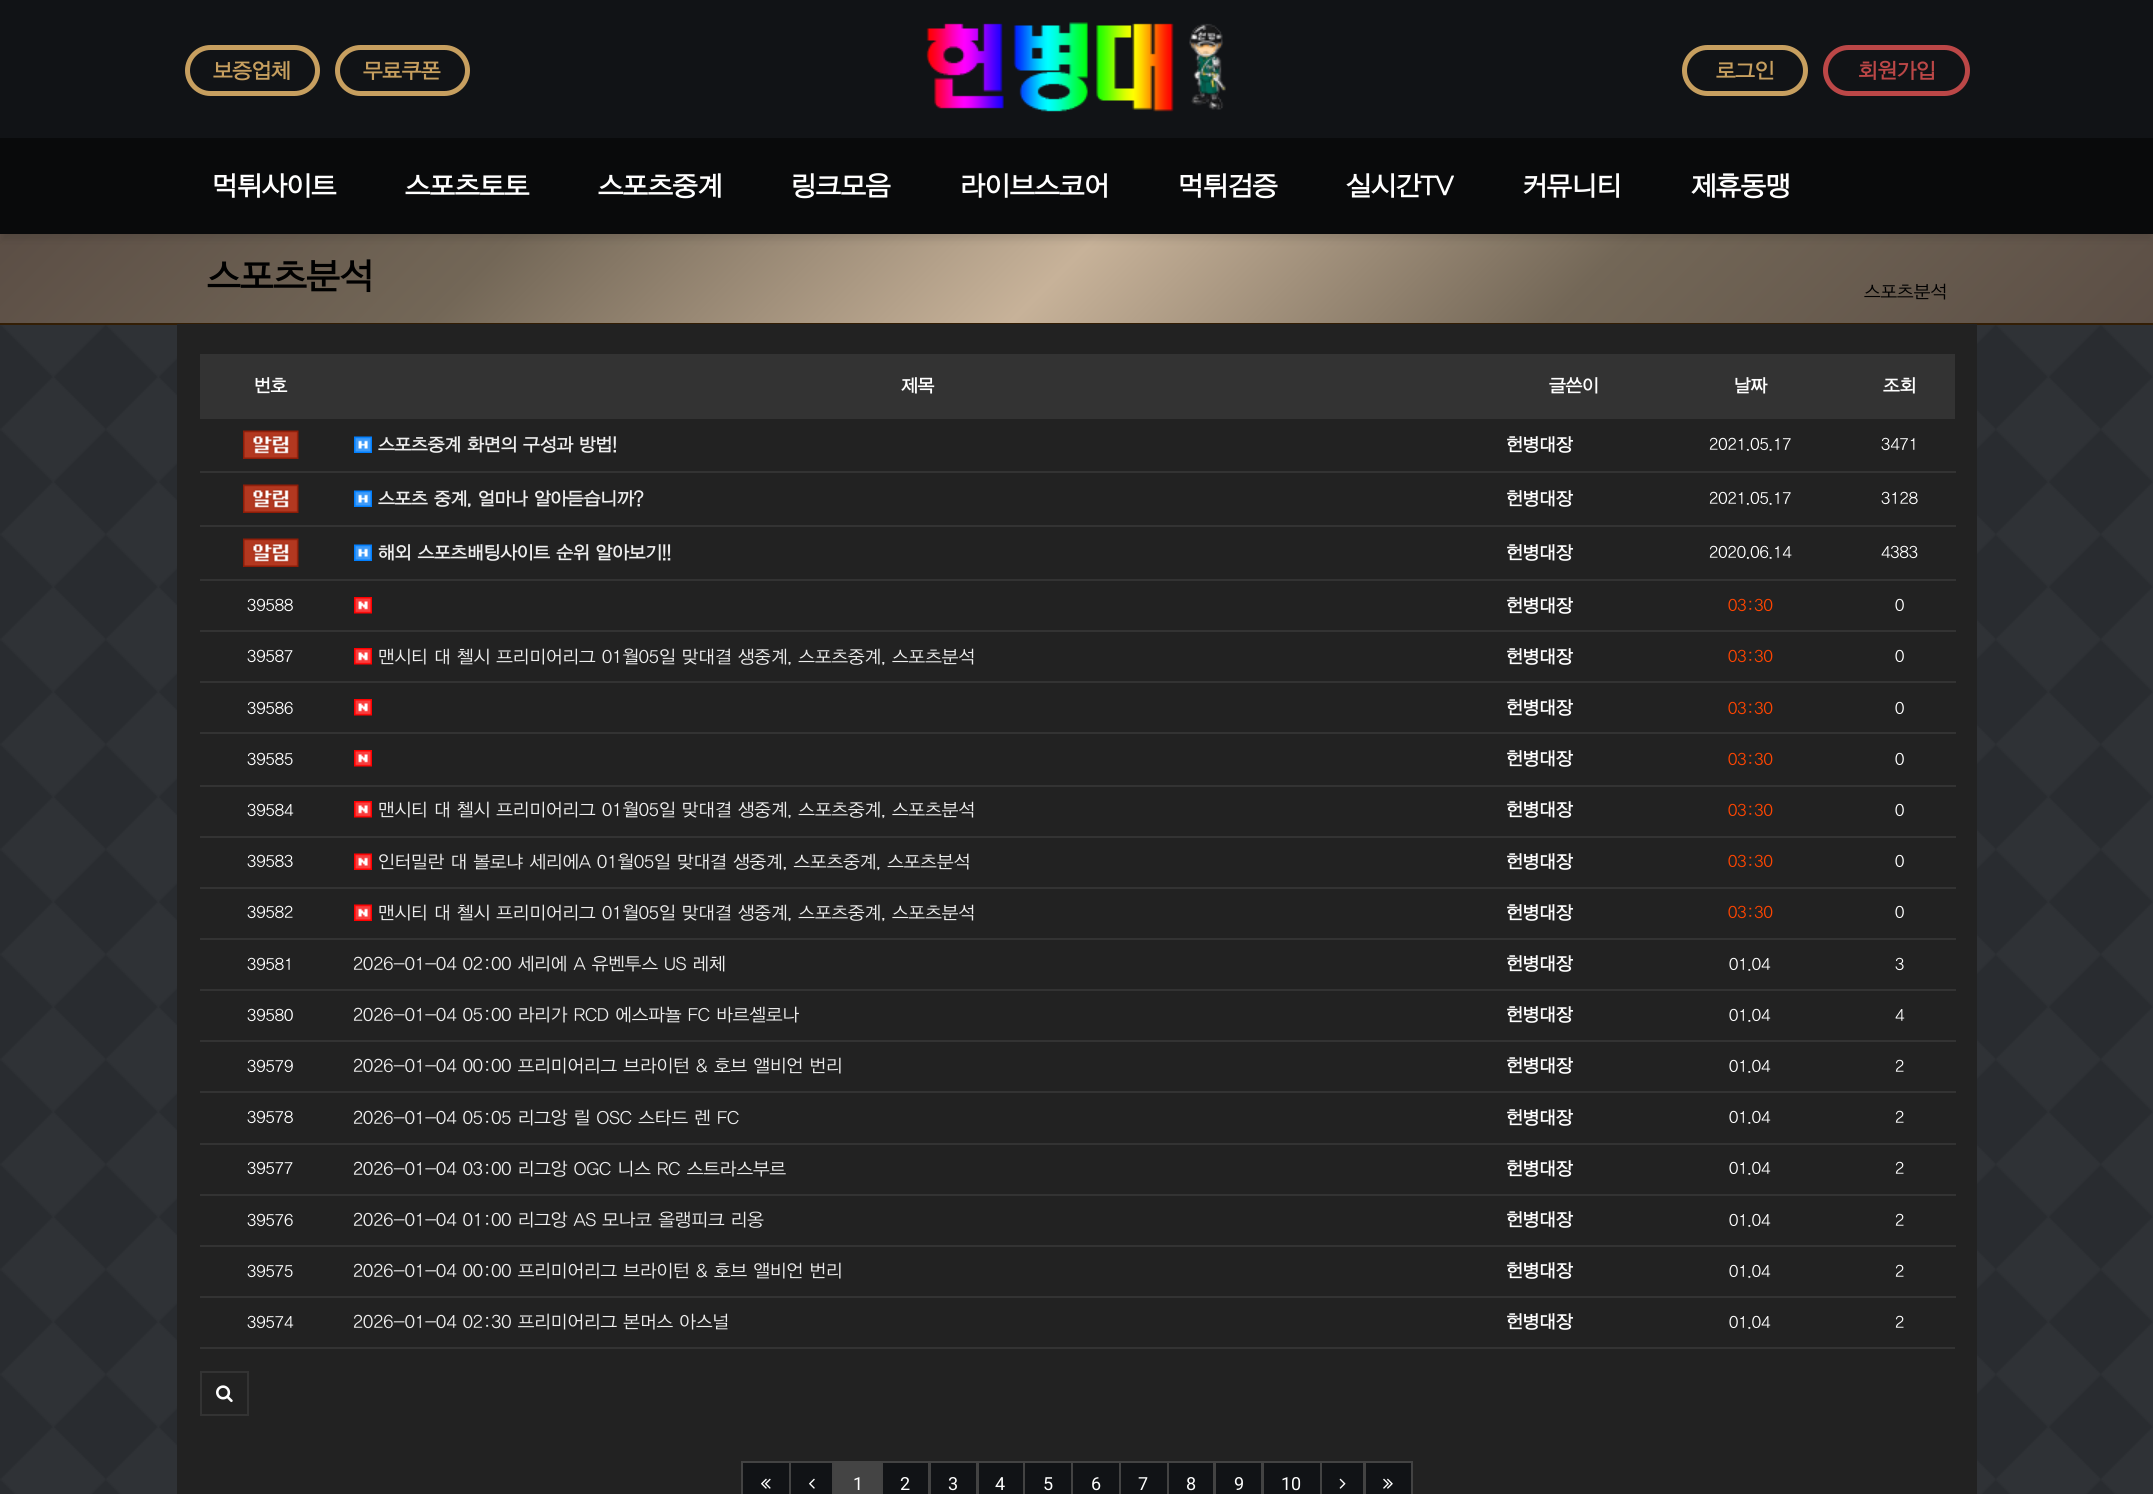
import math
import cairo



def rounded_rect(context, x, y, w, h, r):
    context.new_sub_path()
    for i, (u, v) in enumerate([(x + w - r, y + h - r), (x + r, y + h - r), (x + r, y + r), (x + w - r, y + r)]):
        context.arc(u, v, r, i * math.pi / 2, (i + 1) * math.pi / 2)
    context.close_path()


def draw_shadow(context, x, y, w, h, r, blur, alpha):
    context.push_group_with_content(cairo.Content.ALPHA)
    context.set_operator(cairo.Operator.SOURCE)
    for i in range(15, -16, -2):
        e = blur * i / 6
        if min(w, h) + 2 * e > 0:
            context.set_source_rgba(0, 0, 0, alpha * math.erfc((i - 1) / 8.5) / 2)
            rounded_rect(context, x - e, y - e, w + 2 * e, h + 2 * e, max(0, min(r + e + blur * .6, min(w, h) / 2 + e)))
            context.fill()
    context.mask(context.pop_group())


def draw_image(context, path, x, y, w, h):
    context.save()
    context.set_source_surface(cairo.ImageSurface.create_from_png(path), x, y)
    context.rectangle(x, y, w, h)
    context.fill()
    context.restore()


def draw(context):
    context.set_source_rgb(17 / 255, 19 / 255, 22 / 255)
    context.paint()
    rounded_rect(context, 187.5, 47.5, 130, 46, 23)
    context.set_source_rgb(199 / 255, 159 / 255, 95 / 255)
    context.set_line_width(5)
    context.stroke()
    rounded_rect(context, 337.5, 47.5, 130, 46, 23)
    context.stroke()
    draw_image(context, "images/1.png", 926, 22, 300, 90)
    rounded_rect(context, 1684.5, 47.5, 121, 46, 23)
    context.stroke()
    rounded_rect(context, 1825.5, 47.5, 142, 46, 23)
    context.set_source_rgb(188 / 255, 71 / 255, 71 / 255)
    context.stroke()
    gradient = cairo.LinearGradient(516, -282, 1638, 839)
    gradient.add_color_stop_rgba(0, 91 / 255, 78 / 255, 69 / 255, 1)
    gradient.add_color_stop_rgba(0.23, 115 / 255, 103 / 255, 87 / 255, 1)
    gradient.add_color_stop_rgba(0.49, 199 / 255, 178 / 255, 153 / 255, 1)
    gradient.add_color_stop_rgba(0.73, 115 / 255, 103 / 255, 87 / 255, 1)
    gradient.add_color_stop_rgba(1, 91 / 255, 78 / 255, 69 / 255, 1)
    context.set_source(gradient)
    context.rectangle(0, 234, 2153, 89)
    context.fill()
    context.set_source_rgb(25 / 255, 25 / 255, 25 / 255)
    draw_shadow(context, 3, 149, 2148, 90, 0, 4, 0.15)
    context.set_source_rgb(9 / 255, 10 / 255, 11 / 255)
    context.rectangle(0, 138, 2153, 96)
    context.fill()
    context.set_source_rgb(51 / 255, 30 / 255, 5 / 255)
    context.rectangle(0, 323, 2153, 2)
    context.fill()
    draw_image(context, "images/2.png", 0, 325, 2153, 1169)
    context.set_source_rgb(34 / 255, 34 / 255, 34 / 255)
    context.rectangle(177, 324, 1800, 1170)
    context.fill()
    context.set_source_rgb(51 / 255, 51 / 255, 51 / 255)
    context.rectangle(200, 1347, 1755, 2)
    context.fill()
    context.rectangle(200, 354, 1755, 65)
    context.fill()
    draw_image(context, "images/3.png", 243, 430, 56, 29)
    draw_image(context, "images/4.png", 354, 436, 18, 17)
    draw_image(context, "images/3.png", 243, 484, 56, 29)
    draw_image(context, "images/4.png", 354, 490, 18, 17)
    context.rectangle(200, 471, 1756, 2)
    context.fill()
    draw_image(context, "images/3.png", 243, 538, 56, 29)
    draw_image(context, "images/4.png", 354, 544, 18, 17)
    context.rectangle(200, 525, 1756, 2)
    context.fill()
    draw_image(context, "images/5.png", 354, 597, 18, 17)
    context.rectangle(200, 579, 1756, 2)
    context.fill()
    draw_image(context, "images/5.png", 354, 648, 18, 17)
    context.rectangle(200, 630, 1756, 2)
    context.fill()
    draw_image(context, "images/5.png", 354, 699, 18, 17)
    context.rectangle(200, 681, 1756, 2)
    context.fill()
    draw_image(context, "images/5.png", 354, 750, 18, 17)
    context.rectangle(200, 732, 1756, 2)
    context.fill()
    draw_image(context, "images/5.png", 354, 801, 18, 17)
    context.rectangle(200, 785, 1756, 2)
    context.fill()
    draw_image(context, "images/6.png", 354, 853, 18, 17)
    context.rectangle(200, 836, 1756, 2)
    context.fill()
    draw_image(context, "images/6.png", 354, 904, 18, 17)
    context.rectangle(200, 887, 1756, 2)
    context.fill()
    context.rectangle(200, 938, 1756, 2)
    context.fill()
    context.rectangle(200, 989, 1756, 2)
    context.fill()
    context.rectangle(200, 1040, 1756, 2)
    context.fill()
    context.rectangle(200, 1091, 1756, 2)
    context.fill()
    context.rectangle(200, 1143, 1756, 2)
    context.fill()
    context.rectangle(200, 1194, 1756, 2)
    context.fill()
    context.rectangle(200, 1245, 1756, 2)
    context.fill()
    context.rectangle(200, 1296, 1756, 2)
    context.fill()
    context.rectangle(201, 1372, 47, 43)
    context.set_line_width(2)
    context.stroke()
    draw_image(context, "images/7.png", 216, 1385, 17, 18)
    context.set_source_rgb(17 / 255, 19 / 255, 22 / 255)
    context.rectangle(742, 1462, 48, 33)
    context.fill_preserve()
    context.set_source_rgb(67 / 255, 67 / 255, 67 / 255)
    context.stroke()
    draw_image(context, "images/8.png", 761, 1478, 10, 11)
    context.set_source_rgb(17 / 255, 19 / 255, 22 / 255)
    context.rectangle(790, 1462, 43, 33)
    context.fill_preserve()
    context.set_source_rgb(67 / 255, 67 / 255, 67 / 255)
    context.stroke()
    draw_image(context, "images/9.png", 809, 1478, 6, 11)
    context.set_source_rgb(68 / 255, 68 / 255, 68 / 255)
    context.rectangle(834, 1461, 47, 33)
    context.fill()
    context.set_source_rgb(17 / 255, 19 / 255, 22 / 255)
    context.rectangle(882, 1462, 47, 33)
    context.fill_preserve()
    context.set_source_rgb(67 / 255, 67 / 255, 67 / 255)
    context.stroke()
    context.set_source_rgb(17 / 255, 19 / 255, 22 / 255)
    context.rectangle(930, 1462, 47, 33)
    context.fill_preserve()
    context.set_source_rgb(67 / 255, 67 / 255, 67 / 255)
    context.stroke()
    context.set_source_rgb(17 / 255, 19 / 255, 22 / 255)
    context.rectangle(978, 1462, 46, 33)
    context.fill_preserve()
    context.set_source_rgb(67 / 255, 67 / 255, 67 / 255)
    context.stroke()
    context.set_source_rgb(17 / 255, 19 / 255, 22 / 255)
    context.rectangle(1024, 1462, 48, 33)
    context.fill_preserve()
    context.set_source_rgb(67 / 255, 67 / 255, 67 / 255)
    context.stroke()
    context.set_source_rgb(17 / 255, 19 / 255, 22 / 255)
    context.rectangle(1072, 1462, 48, 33)
    context.fill_preserve()
    context.set_source_rgb(67 / 255, 67 / 255, 67 / 255)
    context.stroke()
    context.set_source_rgb(17 / 255, 19 / 255, 22 / 255)
    context.rectangle(1120, 1462, 48, 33)
    context.fill_preserve()
    context.set_source_rgb(67 / 255, 67 / 255, 67 / 255)
    context.stroke()
    context.set_source_rgb(17 / 255, 19 / 255, 22 / 255)
    context.rectangle(1168, 1462, 46, 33)
    context.fill_preserve()
    context.set_source_rgb(67 / 255, 67 / 255, 67 / 255)
    context.stroke()
    context.set_source_rgb(17 / 255, 19 / 255, 22 / 255)
    context.rectangle(1215, 1462, 47, 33)
    context.fill_preserve()
    context.set_source_rgb(67 / 255, 67 / 255, 67 / 255)
    context.stroke()
    context.set_source_rgb(17 / 255, 19 / 255, 22 / 255)
    context.rectangle(1263, 1462, 58, 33)
    context.fill_preserve()
    context.set_source_rgb(67 / 255, 67 / 255, 67 / 255)
    context.stroke()
    context.set_source_rgb(17 / 255, 19 / 255, 22 / 255)
    context.rectangle(1321, 1462, 43, 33)
    context.fill_preserve()
    context.set_source_rgb(67 / 255, 67 / 255, 67 / 255)
    context.stroke()
    draw_image(context, "images/10.png", 1339, 1478, 7, 11)
    context.set_source_rgb(17 / 255, 19 / 255, 22 / 255)
    context.rectangle(1365, 1462, 47, 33)
    context.fill_preserve()
    context.set_source_rgb(67 / 255, 67 / 255, 67 / 255)
    context.stroke()
    draw_image(context, "images/11.png", 1383, 1478, 10, 11)
    context.select_font_face("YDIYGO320", cairo.FontSlant.NORMAL, cairo.FontWeight.BOLD)
    context.set_font_size(21)
    context.set_source_rgb(199 / 255, 159 / 255, 95 / 255)
    context.move_to(213, 77)
    context.show_text("보증업체")
    context.move_to(363, 77)
    context.show_text("무료쿠폰")
    context.move_to(1716, 77)
    context.show_text("로그인")
    context.set_source_rgb(188 / 255, 71 / 255, 71 / 255)
    context.move_to(1858, 77)
    context.show_text("회원가입")
    context.set_font_size(27)
    context.set_source_rgb(1, 1, 1)
    context.move_to(212, 194)
    context.show_text("먹튀사이트")
    context.move_to(405, 194)
    context.show_text("스포츠토토")
    context.move_to(598, 194)
    context.show_text("스포츠중계")
    context.move_to(791, 194)
    context.show_text("링크모음")
    context.move_to(960, 194)
    context.show_text("라이브스코어")
    context.move_to(1178, 194)
    context.show_text("먹튀검증")
    context.move_to(1346, 194)
    context.show_text("실시간TV")
    context.move_to(1522, 194)
    context.show_text("커뮤니티")
    context.move_to(1691, 194)
    context.show_text("제휴동맹")
    context.set_font_size(36)
    context.set_source_rgb(0, 0, 0)
    context.move_to(207, 287)
    context.show_text("스포츠분석")
    context.select_font_face("YDIYGO320")
    context.set_font_size(18)
    context.move_to(1864, 297)
    context.show_text("스포츠분석")
    context.select_font_face("YDIYGO320", cairo.FontSlant.NORMAL, cairo.FontWeight.BOLD)
    context.set_source_rgb(1, 1, 1)
    context.move_to(254, 391)
    context.show_text("번호")
    context.move_to(901, 391)
    context.show_text("제목")
    context.move_to(1549, 391)
    context.show_text("글쓴이")
    context.move_to(1734, 391)
    context.show_text("날짜")
    context.move_to(1883, 391)
    context.show_text("조회")
    context.set_source_rgb(238 / 255, 238 / 255, 238 / 255)
    context.move_to(378, 450)
    context.show_text("스포츠중계 화면의 구성과 방법!")
    context.set_source_rgb(1, 1, 1)
    context.move_to(1506, 450)
    context.show_text("헌병대장")
    context.select_font_face("YDIYGO320")
    context.set_font_size(16.5)
    context.move_to(1709, 449)
    context.show_text("2021.05.17")
    context.move_to(1881, 449)
    context.show_text("3471")
    context.select_font_face("YDIYGO320", cairo.FontSlant.NORMAL, cairo.FontWeight.BOLD)
    context.set_font_size(18)
    context.set_source_rgb(238 / 255, 238 / 255, 238 / 255)
    context.move_to(378, 504)
    context.show_text("스포츠 중계, 얼마나 알아듣습니까?")
    context.set_source_rgb(1, 1, 1)
    context.move_to(1506, 504)
    context.show_text("헌병대장")
    context.select_font_face("YDIYGO320")
    context.set_font_size(16.5)
    context.move_to(1709, 503)
    context.show_text("2021.05.17")
    context.move_to(1881, 503)
    context.show_text("3128")
    context.select_font_face("YDIYGO320", cairo.FontSlant.NORMAL, cairo.FontWeight.BOLD)
    context.set_font_size(18)
    context.set_source_rgb(238 / 255, 238 / 255, 238 / 255)
    context.move_to(378, 558)
    context.show_text("해외 스포츠배팅사이트 순위 알아보기!!")
    context.set_source_rgb(1, 1, 1)
    context.move_to(1506, 558)
    context.show_text("헌병대장")
    context.select_font_face("YDIYGO320")
    context.set_font_size(16.5)
    context.move_to(1709, 557)
    context.show_text("2020.06.14")
    context.move_to(1881, 557)
    context.show_text("4383")
    context.move_to(247, 610)
    context.show_text("39588")
    context.select_font_face("YDIYGO320", cairo.FontSlant.NORMAL, cairo.FontWeight.BOLD)
    context.set_font_size(18)
    context.move_to(1506, 611)
    context.show_text("헌병대장")
    context.select_font_face("YDIYGO320")
    context.set_font_size(16.5)
    context.set_source_rgb(1, 69 / 255, 0)
    context.move_to(1728, 610)
    context.show_text("03:30")
    context.set_source_rgb(1, 1, 1)
    context.move_to(1895, 610)
    context.show_text("0")
    context.move_to(247, 661)
    context.show_text("39587")
    context.set_font_size(18)
    context.set_source_rgb(238 / 255, 238 / 255, 238 / 255)
    context.move_to(378, 662)
    context.show_text("맨시티 대 첼시 프리미어리그 01월05일 맞대결 생중계, 스포츠중계, 스포츠분석")
    context.select_font_face("YDIYGO320", cairo.FontSlant.NORMAL, cairo.FontWeight.BOLD)
    context.set_source_rgb(1, 1, 1)
    context.move_to(1506, 662)
    context.show_text("헌병대장")
    context.select_font_face("YDIYGO320")
    context.set_font_size(16.5)
    context.set_source_rgb(1, 69 / 255, 0)
    context.move_to(1728, 661)
    context.show_text("03:30")
    context.set_source_rgb(1, 1, 1)
    context.move_to(1895, 661)
    context.show_text("0")
    context.move_to(247, 713)
    context.show_text("39586")
    context.select_font_face("YDIYGO320", cairo.FontSlant.NORMAL, cairo.FontWeight.BOLD)
    context.set_font_size(18)
    context.move_to(1506, 713)
    context.show_text("헌병대장")
    context.select_font_face("YDIYGO320")
    context.set_font_size(16.5)
    context.set_source_rgb(1, 69 / 255, 0)
    context.move_to(1728, 713)
    context.show_text("03:30")
    context.set_source_rgb(1, 1, 1)
    context.move_to(1895, 713)
    context.show_text("0")
    context.move_to(247, 764)
    context.show_text("39585")
    context.select_font_face("YDIYGO320", cairo.FontSlant.NORMAL, cairo.FontWeight.BOLD)
    context.set_font_size(18)
    context.move_to(1506, 764)
    context.show_text("헌병대장")
    context.select_font_face("YDIYGO320")
    context.set_font_size(16.5)
    context.set_source_rgb(1, 69 / 255, 0)
    context.move_to(1728, 764)
    context.show_text("03:30")
    context.set_source_rgb(1, 1, 1)
    context.move_to(1895, 764)
    context.show_text("0")
    context.move_to(247, 815)
    context.show_text("39584")
    context.set_font_size(18)
    context.set_source_rgb(238 / 255, 238 / 255, 238 / 255)
    context.move_to(378, 815)
    context.show_text("맨시티 대 첼시 프리미어리그 01월05일 맞대결 생중계, 스포츠중계, 스포츠분석")
    context.select_font_face("YDIYGO320", cairo.FontSlant.NORMAL, cairo.FontWeight.BOLD)
    context.set_source_rgb(1, 1, 1)
    context.move_to(1506, 815)
    context.show_text("헌병대장")
    context.select_font_face("YDIYGO320")
    context.set_font_size(16.5)
    context.set_source_rgb(1, 69 / 255, 0)
    context.move_to(1728, 815)
    context.show_text("03:30")
    context.set_source_rgb(1, 1, 1)
    context.move_to(1895, 815)
    context.show_text("0")
    context.move_to(247, 866)
    context.show_text("39583")
    context.set_font_size(18)
    context.set_source_rgb(238 / 255, 238 / 255, 238 / 255)
    context.move_to(378, 867)
    context.show_text("인터밀란 대 볼로냐 세리에A 01월05일 맞대결 생중계, 스포츠중계, 스포츠분석")
    context.select_font_face("YDIYGO320", cairo.FontSlant.NORMAL, cairo.FontWeight.BOLD)
    context.set_source_rgb(1, 1, 1)
    context.move_to(1506, 867)
    context.show_text("헌병대장")
    context.select_font_face("YDIYGO320")
    context.set_font_size(16.5)
    context.set_source_rgb(1, 69 / 255, 0)
    context.move_to(1728, 866)
    context.show_text("03:30")
    context.set_source_rgb(1, 1, 1)
    context.move_to(1895, 866)
    context.show_text("0")
    context.move_to(247, 917)
    context.show_text("39582")
    context.set_font_size(18)
    context.set_source_rgb(238 / 255, 238 / 255, 238 / 255)
    context.move_to(378, 918)
    context.show_text("맨시티 대 첼시 프리미어리그 01월05일 맞대결 생중계, 스포츠중계, 스포츠분석")
    context.select_font_face("YDIYGO320", cairo.FontSlant.NORMAL, cairo.FontWeight.BOLD)
    context.set_source_rgb(1, 1, 1)
    context.move_to(1506, 918)
    context.show_text("헌병대장")
    context.select_font_face("YDIYGO320")
    context.set_font_size(16.5)
    context.set_source_rgb(1, 69 / 255, 0)
    context.move_to(1728, 917)
    context.show_text("03:30")
    context.set_source_rgb(1, 1, 1)
    context.move_to(1895, 917)
    context.show_text("0")
    context.move_to(247, 969)
    context.show_text("39581")
    context.set_font_size(18)
    context.set_source_rgb(238 / 255, 238 / 255, 238 / 255)
    context.move_to(353, 969)
    context.show_text("2026-01-04 02:00 세리에 A 유벤투스 US 레체")
    context.select_font_face("YDIYGO320", cairo.FontSlant.NORMAL, cairo.FontWeight.BOLD)
    context.set_source_rgb(1, 1, 1)
    context.move_to(1506, 969)
    context.show_text("헌병대장")
    context.select_font_face("YDIYGO320")
    context.set_font_size(16.5)
    context.move_to(1729, 969)
    context.show_text("01.04")
    context.move_to(1895, 969)
    context.show_text("3")
    context.move_to(247, 1020)
    context.show_text("39580")
    context.set_font_size(18)
    context.set_source_rgb(238 / 255, 238 / 255, 238 / 255)
    context.move_to(353, 1020)
    context.show_text("2026-01-04 05:00 라리가 RCD 에스파뇰 FC 바르셀로나")
    context.select_font_face("YDIYGO320", cairo.FontSlant.NORMAL, cairo.FontWeight.BOLD)
    context.set_source_rgb(1, 1, 1)
    context.move_to(1506, 1020)
    context.show_text("헌병대장")
    context.select_font_face("YDIYGO320")
    context.set_font_size(16.5)
    context.move_to(1729, 1020)
    context.show_text("01.04")
    context.move_to(1895, 1020)
    context.show_text("4")
    context.move_to(247, 1071)
    context.show_text("39579")
    context.set_font_size(18)
    context.set_source_rgb(238 / 255, 238 / 255, 238 / 255)
    context.move_to(353, 1071)
    context.show_text("2026-01-04 00:00 프리미어리그 브라이턴 & 호브 앨비언 번리")
    context.select_font_face("YDIYGO320", cairo.FontSlant.NORMAL, cairo.FontWeight.BOLD)
    context.set_source_rgb(1, 1, 1)
    context.move_to(1506, 1071)
    context.show_text("헌병대장")
    context.select_font_face("YDIYGO320")
    context.set_font_size(16.5)
    context.move_to(1729, 1071)
    context.show_text("01.04")
    context.move_to(1895, 1071)
    context.show_text("2")
    context.move_to(247, 1122)
    context.show_text("39578")
    context.set_font_size(18)
    context.set_source_rgb(238 / 255, 238 / 255, 238 / 255)
    context.move_to(353, 1123)
    context.show_text("2026-01-04 05:05 리그앙 릴 OSC 스타드 렌 FC")
    context.select_font_face("YDIYGO320", cairo.FontSlant.NORMAL, cairo.FontWeight.BOLD)
    context.set_source_rgb(1, 1, 1)
    context.move_to(1506, 1123)
    context.show_text("헌병대장")
    context.select_font_face("YDIYGO320")
    context.set_font_size(16.5)
    context.move_to(1729, 1122)
    context.show_text("01.04")
    context.move_to(1895, 1122)
    context.show_text("2")
    context.move_to(247, 1173)
    context.show_text("39577")
    context.set_font_size(18)
    context.set_source_rgb(238 / 255, 238 / 255, 238 / 255)
    context.move_to(353, 1174)
    context.show_text("2026-01-04 03:00 리그앙 OGC 니스 RC 스트라스부르")
    context.select_font_face("YDIYGO320", cairo.FontSlant.NORMAL, cairo.FontWeight.BOLD)
    context.set_source_rgb(1, 1, 1)
    context.move_to(1506, 1174)
    context.show_text("헌병대장")
    context.select_font_face("YDIYGO320")
    context.set_font_size(16.5)
    context.move_to(1729, 1173)
    context.show_text("01.04")
    context.move_to(1895, 1173)
    context.show_text("2")
    context.move_to(247, 1225)
    context.show_text("39576")
    context.set_font_size(18)
    context.set_source_rgb(238 / 255, 238 / 255, 238 / 255)
    context.move_to(353, 1225)
    context.show_text("2026-01-04 01:00 리그앙 AS 모나코 올랭피크 리옹")
    context.select_font_face("YDIYGO320", cairo.FontSlant.NORMAL, cairo.FontWeight.BOLD)
    context.set_source_rgb(1, 1, 1)
    context.move_to(1506, 1225)
    context.show_text("헌병대장")
    context.select_font_face("YDIYGO320")
    context.set_font_size(16.5)
    context.move_to(1729, 1225)
    context.show_text("01.04")
    context.move_to(1895, 1225)
    context.show_text("2")
    context.move_to(247, 1276)
    context.show_text("39575")
    context.set_font_size(18)
    context.set_source_rgb(238 / 255, 238 / 255, 238 / 255)
    context.move_to(353, 1276)
    context.show_text("2026-01-04 00:00 프리미어리그 브라이턴 & 호브 앨비언 번리")
    context.select_font_face("YDIYGO320", cairo.FontSlant.NORMAL, cairo.FontWeight.BOLD)
    context.set_source_rgb(1, 1, 1)
    context.move_to(1506, 1276)
    context.show_text("헌병대장")
    context.select_font_face("YDIYGO320")
    context.set_font_size(16.5)
    context.move_to(1729, 1276)
    context.show_text("01.04")
    context.move_to(1895, 1276)
    context.show_text("2")
    context.move_to(247, 1327)
    context.show_text("39574")
    context.set_font_size(18)
    context.set_source_rgb(238 / 255, 238 / 255, 238 / 255)
    context.move_to(353, 1327)
    context.show_text("2026-01-04 02:30 프리미어리그 본머스 아스널")
    context.select_font_face("YDIYGO320", cairo.FontSlant.NORMAL, cairo.FontWeight.BOLD)
    context.set_source_rgb(1, 1, 1)
    context.move_to(1506, 1327)
    context.show_text("헌병대장")
    context.select_font_face("YDIYGO320")
    context.set_font_size(16.5)
    context.move_to(1729, 1327)
    context.show_text("01.04")
    context.move_to(1895, 1327)
    context.show_text("2")
    context.select_font_face("Roboto")
    context.set_font_size(18)
    context.move_to(853, 1490)
    context.show_text("1")
    context.move_to(900, 1490)
    context.show_text("2")
    context.move_to(948, 1490)
    context.show_text("3")
    context.move_to(995, 1490)
    context.show_text("4")
    context.move_to(1043, 1490)
    context.show_text("5")
    context.move_to(1091, 1490)
    context.show_text("6")
    context.move_to(1138, 1490)
    context.show_text("7")
    context.move_to(1186, 1490)
    context.show_text("8")
    context.move_to(1234, 1490)
    context.show_text("9")
    context.move_to(1281, 1490)
    context.show_text("10")


surface = cairo.ImageSurface(cairo.Format.RGB24, 2153, 1494)
context = cairo.Context(surface)
options = cairo.FontOptions()
options.set_hint_metrics(cairo.HintMetrics.OFF)
options.set_hint_style(cairo.HintStyle.NONE)
context.set_font_options(options)
context.set_miter_limit(4)
draw(context)
surface.write_to_png("out.png")
